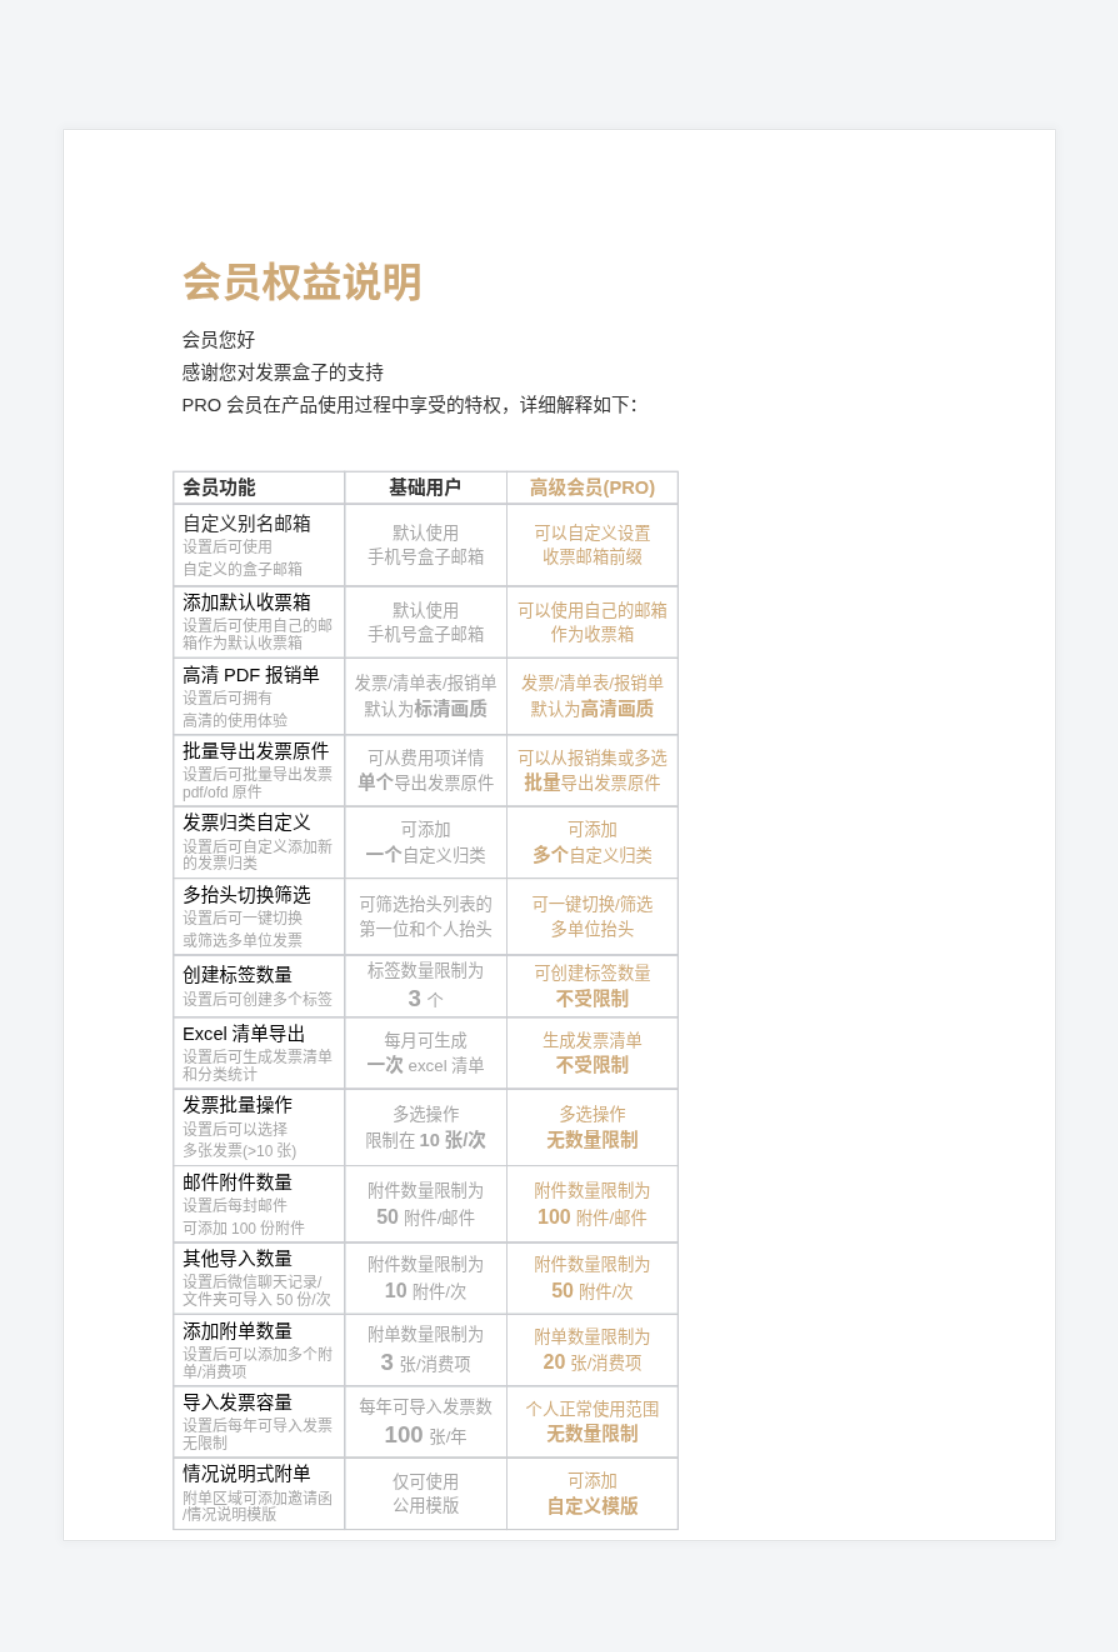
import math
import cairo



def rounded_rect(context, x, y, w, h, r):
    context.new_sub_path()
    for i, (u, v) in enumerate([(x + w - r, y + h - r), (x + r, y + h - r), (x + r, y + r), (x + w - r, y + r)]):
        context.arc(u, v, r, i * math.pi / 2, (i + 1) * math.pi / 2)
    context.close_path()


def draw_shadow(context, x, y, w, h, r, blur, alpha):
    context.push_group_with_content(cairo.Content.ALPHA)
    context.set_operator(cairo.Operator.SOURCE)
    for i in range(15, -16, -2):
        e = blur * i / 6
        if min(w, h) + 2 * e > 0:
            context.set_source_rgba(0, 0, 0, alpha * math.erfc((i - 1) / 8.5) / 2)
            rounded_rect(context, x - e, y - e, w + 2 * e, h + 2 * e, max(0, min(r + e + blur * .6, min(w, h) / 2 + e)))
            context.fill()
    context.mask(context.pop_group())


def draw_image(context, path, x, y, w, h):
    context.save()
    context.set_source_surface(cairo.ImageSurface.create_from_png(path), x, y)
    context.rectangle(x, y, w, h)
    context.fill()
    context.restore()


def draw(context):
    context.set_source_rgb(243 / 255, 245 / 255, 247 / 255)
    context.paint()
    context.rectangle(63.5, 129.5, 992, 1411)
    context.set_source_rgb(233 / 255, 235 / 255, 237 / 255)
    context.set_line_width(1)
    context.stroke()
    context.set_source_rgb(0, 0, 0)
    draw_shadow(context, 64, 130, 991, 1410, 0, 6, 0.06)
    context.set_source_rgb(1, 1, 1)
    context.rectangle(64, 130, 991, 1410)
    context.fill()
    draw_image(context, "images/1.png", 172, 261, 507, 1270)


surface = cairo.ImageSurface(cairo.Format.RGB24, 1118, 1652)
context = cairo.Context(surface)
options = cairo.FontOptions()
options.set_hint_metrics(cairo.HintMetrics.OFF)
options.set_hint_style(cairo.HintStyle.NONE)
context.set_font_options(options)
context.set_miter_limit(4)
draw(context)
surface.write_to_png("out.png")
